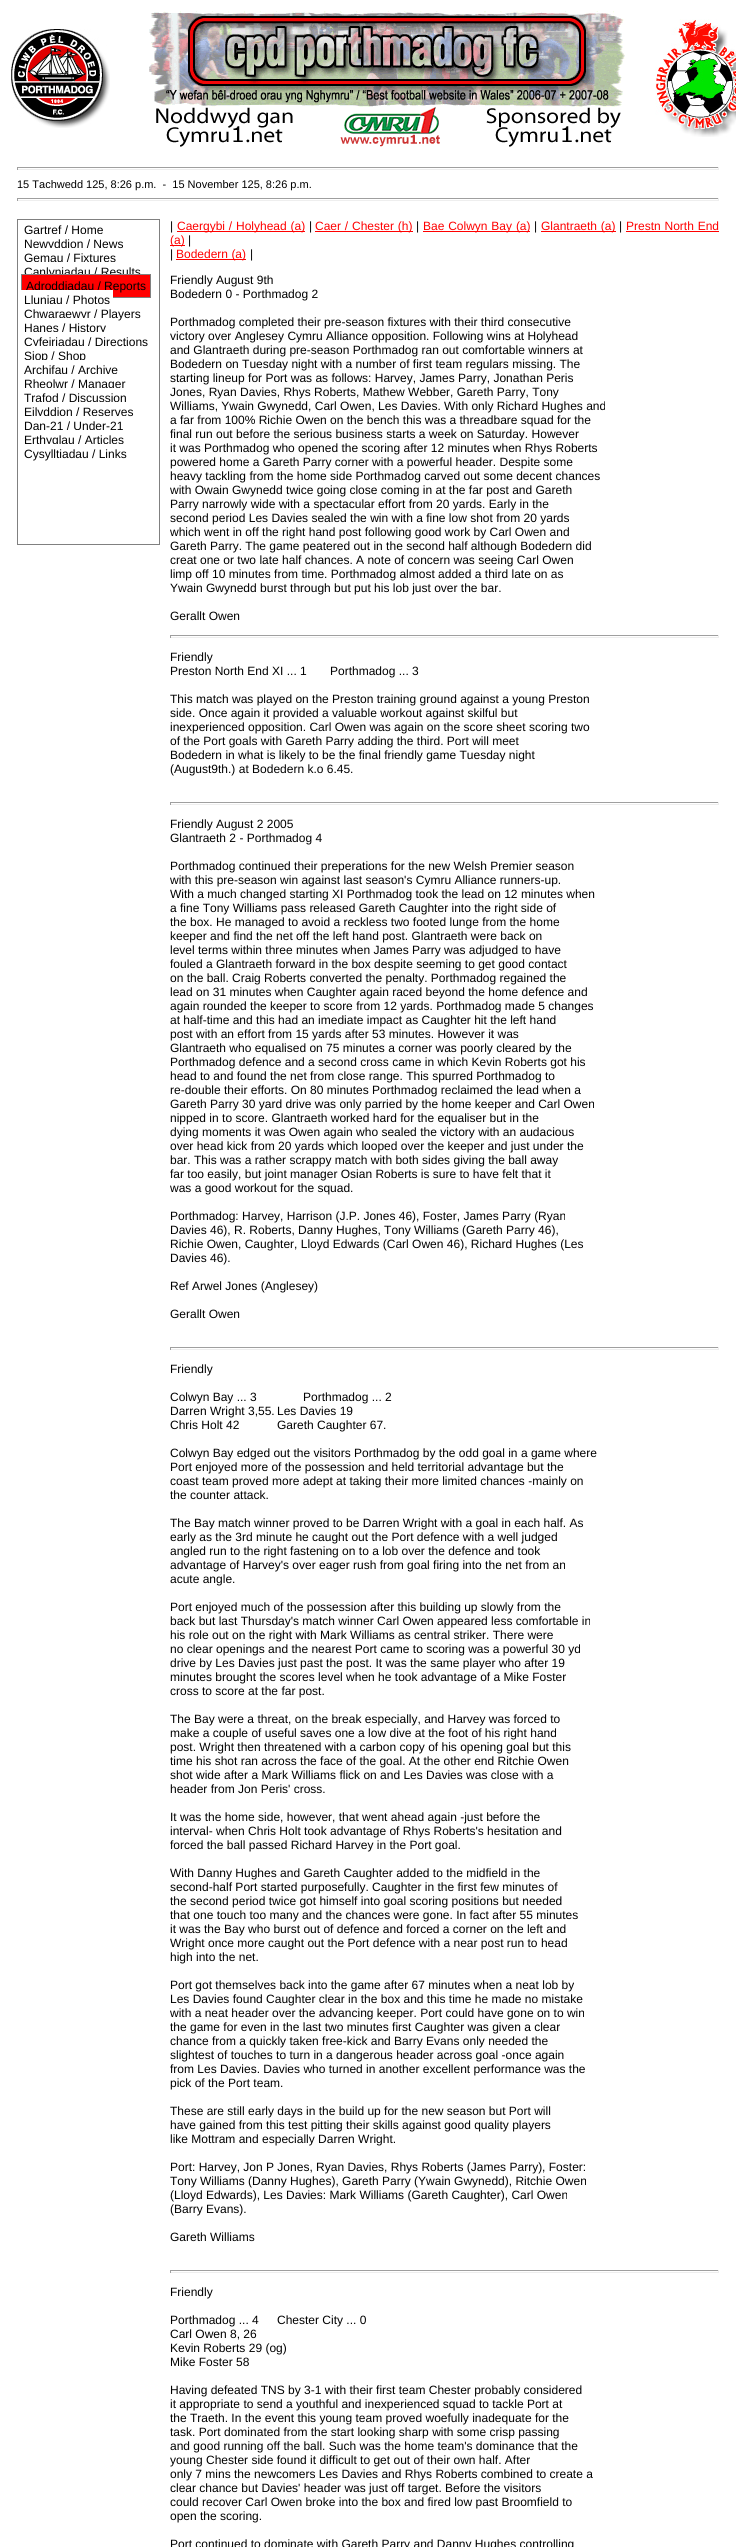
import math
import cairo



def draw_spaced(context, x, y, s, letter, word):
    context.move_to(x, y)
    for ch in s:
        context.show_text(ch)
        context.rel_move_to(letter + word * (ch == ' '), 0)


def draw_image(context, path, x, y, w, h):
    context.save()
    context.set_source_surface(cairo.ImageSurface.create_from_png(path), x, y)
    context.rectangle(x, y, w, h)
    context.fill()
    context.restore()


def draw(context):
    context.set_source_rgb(1, 1, 1)
    context.paint()
    draw_image(context, "images/1.png", 11, 29, 99, 99)
    draw_image(context, "images/2.png", 149, 11, 476, 96)
    draw_image(context, "images/3.png", 156, 107, 465, 40)
    draw_image(context, "images/4.png", 655, 19, 81, 118)
    context.set_source_rgb(159 / 255, 159 / 255, 159 / 255)
    context.rectangle(17, 167, 702, 1)
    context.fill()
    context.set_source_rgb(238 / 255, 238 / 255, 238 / 255)
    context.rectangle(718, 167, 1, 3)
    context.fill()
    context.rectangle(17, 169, 702, 1)
    context.fill()
    context.set_source_rgb(159 / 255, 159 / 255, 159 / 255)
    context.rectangle(17, 167, 1, 3)
    context.fill()
    context.rectangle(17, 198, 702, 1)
    context.fill()
    context.set_source_rgb(238 / 255, 238 / 255, 238 / 255)
    context.rectangle(718, 198, 1, 3)
    context.fill()
    context.rectangle(17, 200, 702, 1)
    context.fill()
    context.set_source_rgb(159 / 255, 159 / 255, 159 / 255)
    context.rectangle(17, 198, 1, 3)
    context.fill()
    context.rectangle(17.5, 219.5, 142, 325)
    context.set_source_rgb(128 / 255, 128 / 255, 128 / 255)
    context.set_line_width(1)
    context.stroke()
    context.set_source_rgb(1, 0, 0)
    context.rectangle(177, 231, 128, 1)
    context.fill()
    context.rectangle(315, 231, 98, 1)
    context.fill()
    context.rectangle(423, 231, 107, 1)
    context.fill()
    context.rectangle(541, 231, 75, 1)
    context.fill()
    context.rectangle(626, 231, 93, 1)
    context.fill()
    context.rectangle(170, 245, 15, 1)
    context.fill()
    context.rectangle(176, 259, 70, 1)
    context.fill()
    context.set_source_rgb(159 / 255, 159 / 255, 159 / 255)
    context.rectangle(170, 635, 549, 1)
    context.fill()
    context.set_source_rgb(238 / 255, 238 / 255, 238 / 255)
    context.rectangle(718, 635, 1, 3)
    context.fill()
    context.rectangle(170, 637, 549, 1)
    context.fill()
    context.set_source_rgb(159 / 255, 159 / 255, 159 / 255)
    context.rectangle(170, 635, 1, 3)
    context.fill()
    context.rectangle(170, 802, 549, 1)
    context.fill()
    context.set_source_rgb(238 / 255, 238 / 255, 238 / 255)
    context.rectangle(718, 802, 1, 3)
    context.fill()
    context.rectangle(170, 804, 549, 1)
    context.fill()
    context.set_source_rgb(159 / 255, 159 / 255, 159 / 255)
    context.rectangle(170, 802, 1, 3)
    context.fill()
    context.rectangle(170, 1347, 549, 1)
    context.fill()
    context.set_source_rgb(238 / 255, 238 / 255, 238 / 255)
    context.rectangle(718, 1347, 1, 3)
    context.fill()
    context.rectangle(170, 1349, 549, 1)
    context.fill()
    context.set_source_rgb(159 / 255, 159 / 255, 159 / 255)
    context.rectangle(170, 1347, 1, 3)
    context.fill()
    context.rectangle(170, 2270, 549, 1)
    context.fill()
    context.set_source_rgb(238 / 255, 238 / 255, 238 / 255)
    context.rectangle(718, 2270, 1, 3)
    context.fill()
    context.rectangle(170, 2272, 549, 1)
    context.fill()
    context.set_source_rgb(159 / 255, 159 / 255, 159 / 255)
    context.rectangle(170, 2270, 1, 3)
    context.fill()
    context.select_font_face("Liberation Sans")
    context.set_font_size(11)
    context.set_source_rgb(0, 0, 0)
    context.move_to(17, 188)
    context.show_text("15 Tachwedd 125, 8:26 p.m.  -  15 November 125, 8:26 p.m.")
    context.set_font_size(12)
    context.move_to(24, 234)
    context.show_text("Gartref / Home")
    context.move_to(24, 248)
    context.show_text("Newyddion / News")
    context.set_source_rgb(1, 1, 1)
    context.rectangle(28, 234, 73, 1)
    context.fill()
    context.set_source_rgb(0, 0, 0)
    context.move_to(24, 262)
    context.show_text("Gemau / Fixtures")
    context.set_source_rgb(1, 1, 1)
    context.rectangle(35, 248, 72, 3)
    context.fill()
    context.set_source_rgb(0, 0, 0)
    context.move_to(24, 276)
    context.show_text("Canlyniadau / Results")
    context.set_source_rgb(1, 1, 1)
    context.rectangle(28, 262, 86, 1)
    context.fill()
    context.set_source_rgb(1, 0, 0)
    context.rectangle(21.5, 274.5, 129, 23)
    context.fill_preserve()
    context.set_source_rgb(128 / 255, 128 / 255, 128 / 255)
    context.stroke()
    context.set_source_rgb(0, 0, 0)
    context.move_to(26, 290)
    context.show_text("Adroddiadau / Reports")
    context.set_source_rgb(1, 1, 1)
    context.rectangle(21, 290, 92, 8)
    context.fill()
    context.set_source_rgb(0, 0, 0)
    context.move_to(24, 304)
    context.show_text("Lluniau / Photos")
    context.move_to(24, 318)
    context.show_text("Chwaraewyr / Players")
    context.set_source_rgb(1, 1, 1)
    context.rectangle(35, 304, 73, 1)
    context.fill()
    context.set_source_rgb(0, 0, 0)
    context.move_to(24, 332)
    context.show_text("Hanes / History")
    context.set_source_rgb(1, 1, 1)
    context.rectangle(28, 318, 67, 3)
    context.fill()
    context.set_source_rgb(0, 0, 0)
    context.move_to(24, 346)
    context.show_text("Cyfeiriadau / Directions")
    context.set_source_rgb(1, 1, 1)
    context.rectangle(34, 332, 70, 3)
    context.fill()
    context.set_source_rgb(0, 0, 0)
    context.move_to(24, 360)
    context.show_text("Siop / Shop")
    context.set_source_rgb(1, 1, 1)
    context.rectangle(28, 346, 61, 3)
    context.fill()
    context.set_source_rgb(0, 0, 0)
    context.move_to(24, 374)
    context.show_text("Archifau / Archive")
    context.set_source_rgb(1, 1, 1)
    context.rectangle(27, 360, 57, 3)
    context.fill()
    context.set_source_rgb(0, 0, 0)
    context.move_to(24, 388)
    context.show_text("Rheolwr / Manager")
    context.set_source_rgb(1, 1, 1)
    context.rectangle(38, 374, 78, 1)
    context.fill()
    context.set_source_rgb(0, 0, 0)
    context.move_to(24, 402)
    context.show_text("Trafod / Discussion")
    context.set_source_rgb(1, 1, 1)
    context.rectangle(42, 388, 77, 3)
    context.fill()
    context.set_source_rgb(0, 0, 0)
    context.move_to(24, 416)
    context.show_text("Eilyddion / Reserves")
    context.set_source_rgb(1, 1, 1)
    context.rectangle(37, 402, 81, 1)
    context.fill()
    context.set_source_rgb(0, 0, 0)
    context.move_to(24, 430)
    context.show_text("Dan-21 / Under-21")
    context.set_source_rgb(1, 1, 1)
    context.rectangle(37, 416, 88, 3)
    context.fill()
    context.set_source_rgb(0, 0, 0)
    context.move_to(24, 444)
    context.show_text("Erthyglau / Articles")
    context.set_source_rgb(1, 1, 1)
    context.rectangle(34, 430, 66, 1)
    context.fill()
    context.set_source_rgb(0, 0, 0)
    context.move_to(24, 458)
    context.show_text("Cysylltiadau / Links")
    context.set_source_rgb(1, 1, 1)
    context.rectangle(37, 444, 85, 3)
    context.fill()
    context.set_source_rgb(0, 0, 0)
    context.move_to(170, 230)
    context.show_text("|")
    context.set_source_rgb(1, 0, 0)
    draw_spaced(context, 177, 230, "Caergybi / Holyhead (a)", 0, 0.5)
    context.set_source_rgb(0, 0, 0)
    context.move_to(309, 230)
    context.show_text("|")
    context.set_source_rgb(1, 0, 0)
    draw_spaced(context, 315, 230, "Caer / Chester (h)", 0, 0.5)
    context.set_source_rgb(0, 0, 0)
    context.move_to(416, 230)
    context.show_text("|")
    context.set_source_rgb(1, 0, 0)
    draw_spaced(context, 423, 230, "Bae Colwyn Bay (a)", 0, 0.5)
    context.set_source_rgb(0, 0, 0)
    context.move_to(534, 230)
    context.show_text("|")
    context.set_source_rgb(1, 0, 0)
    draw_spaced(context, 541, 230, "Glantraeth (a)", 0, 0.5)
    context.set_source_rgb(0, 0, 0)
    context.move_to(619, 230)
    context.show_text("|")
    context.set_source_rgb(1, 0, 0)
    draw_spaced(context, 626, 230, "Prestn North End", 0, 0.5)
    context.move_to(170, 244)
    context.show_text("(a)")
    context.set_source_rgb(0, 0, 0)
    context.move_to(188, 244)
    context.show_text("|")
    context.move_to(170, 258)
    context.show_text("|")
    context.set_source_rgb(1, 0, 0)
    context.move_to(176, 258)
    context.show_text("Bodedern (a)")
    context.set_source_rgb(0, 0, 0)
    context.move_to(250, 258)
    context.show_text("|")
    context.move_to(170, 284)
    context.show_text("Friendly August 9th")
    context.move_to(170, 298)
    context.show_text("Bodedern 0 - Porthmadog 2")
    context.move_to(170, 326)
    context.show_text("Porthmadog completed their pre-season fixtures with their third consecutive")
    context.move_to(170, 340)
    context.show_text("victory over Anglesey Cymru Alliance opposition. Following wins at Holyhead")
    context.move_to(170, 354)
    context.show_text("and Glantraeth during pre-season Porthmadog ran out comfortable winners at")
    context.move_to(170, 368)
    context.show_text("Bodedern on Tuesday night with a number of first team regulars missing. The")
    context.move_to(170, 382)
    context.show_text("starting lineup for Port was as follows: Harvey, James Parry, Jonathan Peris")
    context.move_to(170, 396)
    context.show_text("Jones, Ryan Davies, Rhys Roberts, Mathew Webber, Gareth Parry, Tony")
    context.move_to(170, 410)
    context.show_text("Williams, Ywain Gwynedd, Carl Owen, Les Davies. With only Richard Hughes and")
    context.move_to(170, 424)
    context.show_text("a far from 100% Richie Owen on the bench this was a threadbare squad for the")
    context.move_to(170, 438)
    context.show_text("final run out before the serious business starts a week on Saturday. However")
    context.move_to(170, 452)
    context.show_text("it was Porthmadog who opened the scoring after 12 minutes when Rhys Roberts")
    context.move_to(170, 466)
    context.show_text("powered home a Gareth Parry corner with a powerful header. Despite some")
    context.move_to(170, 480)
    context.show_text("heavy tackling from the home side Porthmadog carved out some decent chances")
    context.move_to(170, 494)
    context.show_text("with Owain Gwynedd twice going close coming in at the far post and Gareth")
    context.move_to(170, 508)
    context.show_text("Parry narrowly wide with a spectacular effort from 20 yards. Early in the")
    context.move_to(170, 522)
    context.show_text("second period Les Davies sealed the win with a fine low shot from 20 yards")
    context.move_to(170, 536)
    context.show_text("which went in off the right hand post following good work by Carl Owen and")
    context.move_to(170, 550)
    context.show_text("Gareth Parry. The game peatered out in the second half although Bodedern did")
    context.move_to(170, 564)
    context.show_text("creat one or two late half chances. A note of concern was seeing Carl Owen")
    context.move_to(170, 578)
    context.show_text("limp off 10 minutes from time. Porthmadog almost added a third late on as")
    context.move_to(170, 592)
    context.show_text("Ywain Gwynedd burst through but put his lob just over the bar.")
    context.move_to(170, 620)
    context.show_text("Gerallt Owen")
    context.move_to(170, 661)
    context.show_text("Friendly")
    context.move_to(170, 675)
    context.show_text("Preston North End XI ... 1")
    context.move_to(330, 675)
    context.show_text("Porthmadog ... 3")
    context.move_to(170, 703)
    context.show_text("This match was played on the Preston training ground against a young Preston")
    context.move_to(170, 717)
    context.show_text("side. Once again it provided a valuable workout against skilful but")
    context.move_to(170, 731)
    context.show_text("inexperienced opposition. Carl Owen was again on the score sheet scoring two")
    context.move_to(170, 745)
    context.show_text("of the Port goals with Gareth Parry adding the third. Port will meet")
    context.move_to(170, 759)
    context.show_text("Bodedern in what is likely to be the final friendly game Tuesday night")
    context.move_to(170, 773)
    context.show_text("(August9th.) at Bodedern k.o 6.45.")
    context.move_to(170, 828)
    context.show_text("Friendly August 2 2005")
    context.move_to(170, 842)
    context.show_text("Glantraeth 2 - Porthmadog 4")
    context.move_to(170, 870)
    context.show_text("Porthmadog continued their preperations for the new Welsh Premier season")
    context.move_to(170, 884)
    context.show_text("with this pre-season win against last season's Cymru Alliance runners-up.")
    context.move_to(170, 898)
    context.show_text("With a much changed starting XI Porthmadog took the lead on 12 minutes when")
    context.move_to(170, 912)
    context.show_text("a fine Tony Williams pass released Gareth Caughter into the right side of")
    context.move_to(170, 926)
    context.show_text("the box. He managed to avoid a reckless two footed lunge from the home")
    context.move_to(170, 940)
    context.show_text("keeper and find the net off the left hand post. Glantraeth were back on")
    context.move_to(170, 954)
    context.show_text("level terms within three minutes when James Parry was adjudged to have")
    context.move_to(170, 968)
    context.show_text("fouled a Glantraeth forward in the box despite seeming to get good contact")
    context.move_to(170, 982)
    context.show_text("on the ball. Craig Roberts converted the penalty. Porthmadog regained the")
    context.move_to(170, 996)
    context.show_text("lead on 31 minutes when Caughter again raced beyond the home defence and")
    context.move_to(170, 1010)
    context.show_text("again rounded the keeper to score from 12 yards. Porthmadog made 5 changes")
    context.move_to(170, 1024)
    context.show_text("at half-time and this had an imediate impact as Caughter hit the left hand")
    context.move_to(170, 1038)
    context.show_text("post with an effort from 15 yards after 53 minutes. However it was")
    context.move_to(170, 1052)
    context.show_text("Glantraeth who equalised on 75 minutes a corner was poorly cleared by the")
    context.move_to(170, 1066)
    context.show_text("Porthmadog defence and a second cross came in which Kevin Roberts got his")
    context.move_to(170, 1080)
    context.show_text("head to and found the net from close range. This spurred Porthmadog to")
    context.move_to(170, 1094)
    context.show_text("re-double their efforts. On 80 minutes Porthmadog reclaimed the lead when a")
    context.move_to(170, 1108)
    context.show_text("Gareth Parry 30 yard drive was only parried by the home keeper and Carl Owen")
    context.move_to(170, 1122)
    context.show_text("nipped in to score. Glantraeth worked hard for the equaliser but in the")
    context.move_to(170, 1136)
    context.show_text("dying moments it was Owen again who sealed the victory with an audacious")
    context.move_to(170, 1150)
    context.show_text("over head kick from 20 yards which looped over the keeper and just under the")
    context.move_to(170, 1164)
    context.show_text("bar. This was a rather scrappy match with both sides giving the ball away")
    context.move_to(170, 1178)
    context.show_text("far too easily, but joint manager Osian Roberts is sure to have felt that it")
    context.move_to(170, 1192)
    context.show_text("was a good workout for the squad.")
    context.move_to(170, 1220)
    context.show_text("Porthmadog: Harvey, Harrison (J.P. Jones 46), Foster, James Parry (Ryan")
    context.move_to(170, 1234)
    context.show_text("Davies 46), R. Roberts, Danny Hughes, Tony Williams (Gareth Parry 46),")
    context.move_to(170, 1248)
    context.show_text("Richie Owen, Caughter, Lloyd Edwards (Carl Owen 46), Richard Hughes (Les")
    context.move_to(170, 1262)
    context.show_text("Davies 46).")
    context.move_to(170, 1290)
    context.show_text("Ref Arwel Jones (Anglesey)")
    context.move_to(170, 1318)
    context.show_text("Gerallt Owen")
    context.move_to(170, 1373)
    context.show_text("Friendly")
    context.move_to(170, 1401)
    context.show_text("Colwyn Bay ... 3")
    context.move_to(303, 1401)
    context.show_text("Porthmadog ... 2")
    context.move_to(170, 1415)
    context.show_text("Darren Wright 3,55.")
    context.move_to(277, 1415)
    context.show_text("Les Davies 19")
    context.move_to(170, 1429)
    context.show_text("Chris Holt 42")
    context.move_to(277, 1429)
    context.show_text("Gareth Caughter 67.")
    context.move_to(170, 1457)
    context.show_text("Colwyn Bay edged out the visitors Porthmadog by the odd goal in a game where")
    context.move_to(170, 1471)
    context.show_text("Port enjoyed more of the possession and held territorial advantage but the")
    context.move_to(170, 1485)
    context.show_text("coast team proved more adept at taking their more limited chances -mainly on")
    context.move_to(170, 1499)
    context.show_text("the counter attack.")
    context.move_to(170, 1527)
    context.show_text("The Bay match winner proved to be Darren Wright with a goal in each half. As")
    context.move_to(170, 1541)
    context.show_text("early as the 3rd minute he caught out the Port defence with a well judged")
    context.move_to(170, 1555)
    context.show_text("angled run to the right fastening on to a lob over the defence and took")
    context.move_to(170, 1569)
    context.show_text("advantage of Harvey's over eager rush from goal firing into the net from an")
    context.move_to(170, 1583)
    context.show_text("acute angle.")
    context.move_to(170, 1611)
    context.show_text("Port enjoyed much of the possession after this building up slowly from the")
    context.move_to(170, 1625)
    context.show_text("back but last Thursday's match winner Carl Owen appeared less comfortable in")
    context.move_to(170, 1639)
    context.show_text("his role out on the right with Mark Williams as central striker. There were")
    context.move_to(170, 1653)
    context.show_text("no clear openings and the nearest Port came to scoring was a powerful 30 yd")
    context.move_to(170, 1667)
    context.show_text("drive by Les Davies just past the post. It was the same player who after 19")
    context.move_to(170, 1681)
    context.show_text("minutes brought the scores level when he took advantage of a Mike Foster")
    context.move_to(170, 1695)
    context.show_text("cross to score at the far post.")
    context.move_to(170, 1723)
    context.show_text("The Bay were a threat, on the break especially, and Harvey was forced to")
    context.move_to(170, 1737)
    context.show_text("make a couple of useful saves one a low dive at the foot of his right hand")
    context.move_to(170, 1751)
    context.show_text("post. Wright then threatened with a carbon copy of his opening goal but this")
    context.move_to(170, 1765)
    context.show_text("time his shot ran across the face of the goal. At the other end Ritchie Owen")
    context.move_to(170, 1779)
    context.show_text("shot wide after a Mark Williams flick on and Les Davies was close with a")
    context.move_to(170, 1793)
    context.show_text("header from Jon Peris' cross.")
    context.move_to(170, 1821)
    context.show_text("It was the home side, however, that went ahead again -just before the")
    context.move_to(170, 1835)
    context.show_text("interval- when Chris Holt took advantage of Rhys Roberts's hesitation and")
    context.move_to(170, 1849)
    context.show_text("forced the ball passed Richard Harvey in the Port goal.")
    context.move_to(170, 1877)
    context.show_text("With Danny Hughes and Gareth Caughter added to the midfield in the")
    context.move_to(170, 1891)
    context.show_text("second-half Port started purposefully. Caughter in the first few minutes of")
    context.move_to(170, 1905)
    context.show_text("the second period twice got himself into goal scoring positions but needed")
    context.move_to(170, 1919)
    context.show_text("that one touch too many and the chances were gone. In fact after 55 minutes")
    context.move_to(170, 1933)
    context.show_text("it was the Bay who burst out of defence and forced a corner on the left and")
    context.move_to(170, 1947)
    context.show_text("Wright once more caught out the Port defence with a near post run to head")
    context.move_to(170, 1961)
    context.show_text("high into the net.")
    context.move_to(170, 1989)
    context.show_text("Port got themselves back into the game after 67 minutes when a neat lob by")
    context.move_to(170, 2003)
    context.show_text("Les Davies found Caughter clear in the box and this time he made no mistake")
    context.move_to(170, 2017)
    context.show_text("with a neat header over the advancing keeper. Port could have gone on to win")
    context.move_to(170, 2031)
    context.show_text("the game for even in the last two minutes first Caughter was given a clear")
    context.move_to(170, 2045)
    context.show_text("chance from a quickly taken free-kick and Barry Evans only needed the")
    context.move_to(170, 2059)
    context.show_text("slightest of touches to turn in a dangerous header across goal -once again")
    context.move_to(170, 2073)
    context.show_text("from Les Davies. Davies who turned in another excellent performance was the")
    context.move_to(170, 2087)
    context.show_text("pick of the Port team.")
    context.move_to(170, 2115)
    context.show_text("These are still early days in the build up for the new season but Port will")
    context.move_to(170, 2129)
    context.show_text("have gained from this test pitting their skills against good quality players")
    context.move_to(170, 2143)
    context.show_text("like Mottram and especially Darren Wright.")
    context.move_to(170, 2171)
    context.show_text("Port: Harvey, Jon P Jones, Ryan Davies, Rhys Roberts (James Parry), Foster:")
    context.move_to(170, 2185)
    context.show_text("Tony Williams (Danny Hughes), Gareth Parry (Ywain Gwynedd), Ritchie Owen")
    context.move_to(170, 2199)
    context.show_text("(Lloyd Edwards), Les Davies: Mark Williams (Gareth Caughter), Carl Owen")
    context.move_to(170, 2213)
    context.show_text("(Barry Evans).")
    context.move_to(170, 2241)
    context.show_text("Gareth Williams")
    context.move_to(170, 2296)
    context.show_text("Friendly")
    context.move_to(170, 2324)
    context.show_text("Porthmadog ... 4")
    context.move_to(277, 2324)
    context.show_text("Chester City ... 0")
    context.move_to(170, 2338)
    context.show_text("Carl Owen 8, 26")
    context.move_to(170, 2352)
    context.show_text("Kevin Roberts 29 (og)")
    context.move_to(170, 2366)
    context.show_text("Mike Foster 58")
    context.move_to(170, 2394)
    context.show_text("Having defeated TNS by 3-1 with their first team Chester probably considered")
    context.move_to(170, 2408)
    context.show_text("it appropriate to send a youthful and inexperienced squad to tackle Port at")
    context.move_to(170, 2422)
    context.show_text("the Traeth. In the event this young team proved woefully inadequate for the")
    context.move_to(170, 2436)
    context.show_text("task. Port dominated from the start looking sharp with some crisp passing")
    context.move_to(170, 2450)
    context.show_text("and good running off the ball. Such was the home team's dominance that the")
    context.move_to(170, 2464)
    context.show_text("young Chester side found it difficult to get out of their own half. After")
    context.move_to(170, 2478)
    context.show_text("only 7 mins the newcomers Les Davies and Rhys Roberts combined to create a")
    context.move_to(170, 2492)
    context.show_text("clear chance but Davies' header was just off target. Before the visitors")
    context.move_to(170, 2506)
    context.show_text("could recover Carl Owen broke into the box and fired low past Broomfield to")
    context.move_to(170, 2520)
    context.show_text("open the scoring.")
    context.move_to(170, 2548)
    context.show_text("Port continued to dominate with Gareth Parry and Danny Hughes controlling")


surface = cairo.ImageSurface(cairo.Format.RGB24, 736, 2547)
context = cairo.Context(surface)
options = cairo.FontOptions()
options.set_hint_metrics(cairo.HintMetrics.OFF)
options.set_hint_style(cairo.HintStyle.NONE)
context.set_font_options(options)
context.set_miter_limit(4)
draw(context)
surface.write_to_png("out.png")
